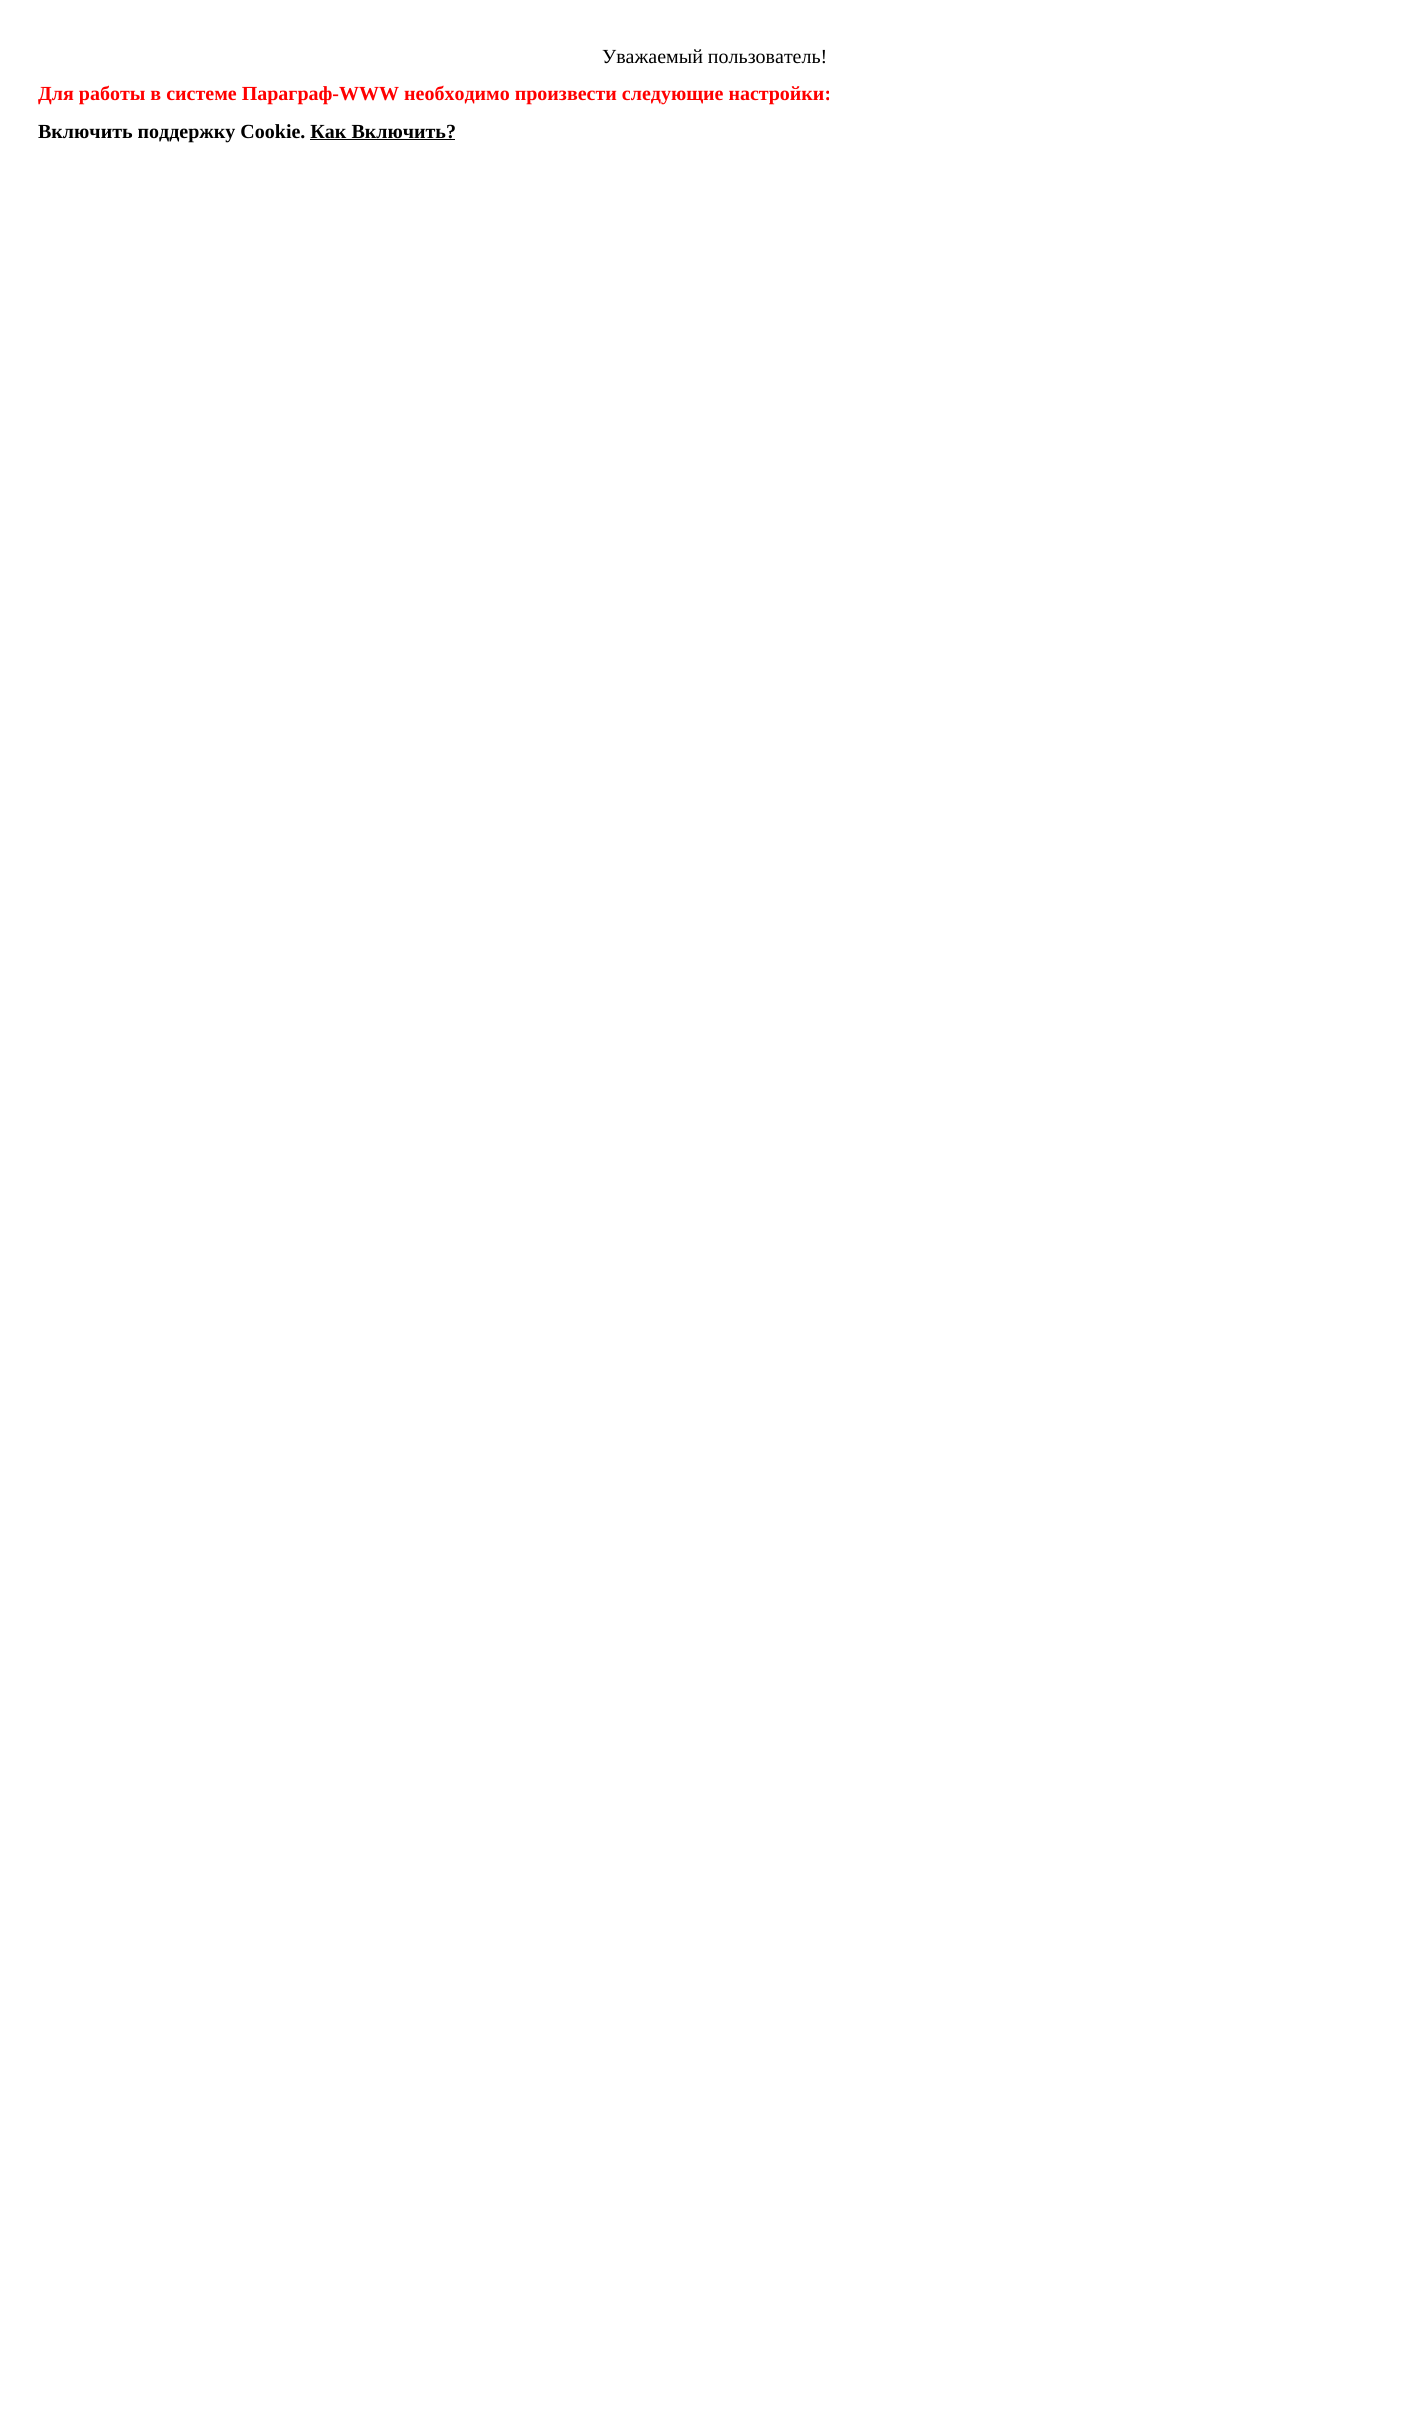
import math
import cairo



def draw(context):
    context.set_source_rgb(1, 1, 1)
    context.paint()
    context.set_source_rgb(0, 0, 0)
    context.rectangle(310, 139, 145, 1)
    context.fill()
    context.select_font_face("Liberation Serif")
    context.set_font_size(20)
    context.move_to(602, 63)
    context.show_text("Уважаемый пользователь!")
    context.select_font_face("Liberation Serif", cairo.FontSlant.NORMAL, cairo.FontWeight.BOLD)
    context.set_source_rgb(1, 0, 0)
    context.move_to(38, 100)
    context.show_text("Для работы в системе Параграф-WWW необходимо произвести следующие настройки:")
    context.set_source_rgb(0, 0, 0)
    context.move_to(38, 138)
    context.show_text("Включить поддержку Cookie. Как Включить?")


surface = cairo.ImageSurface(cairo.Format.RGB24, 1428, 2434)
context = cairo.Context(surface)
options = cairo.FontOptions()
options.set_hint_metrics(cairo.HintMetrics.OFF)
options.set_hint_style(cairo.HintStyle.NONE)
context.set_font_options(options)
context.set_miter_limit(4)
draw(context)
surface.write_to_png("out.png")
